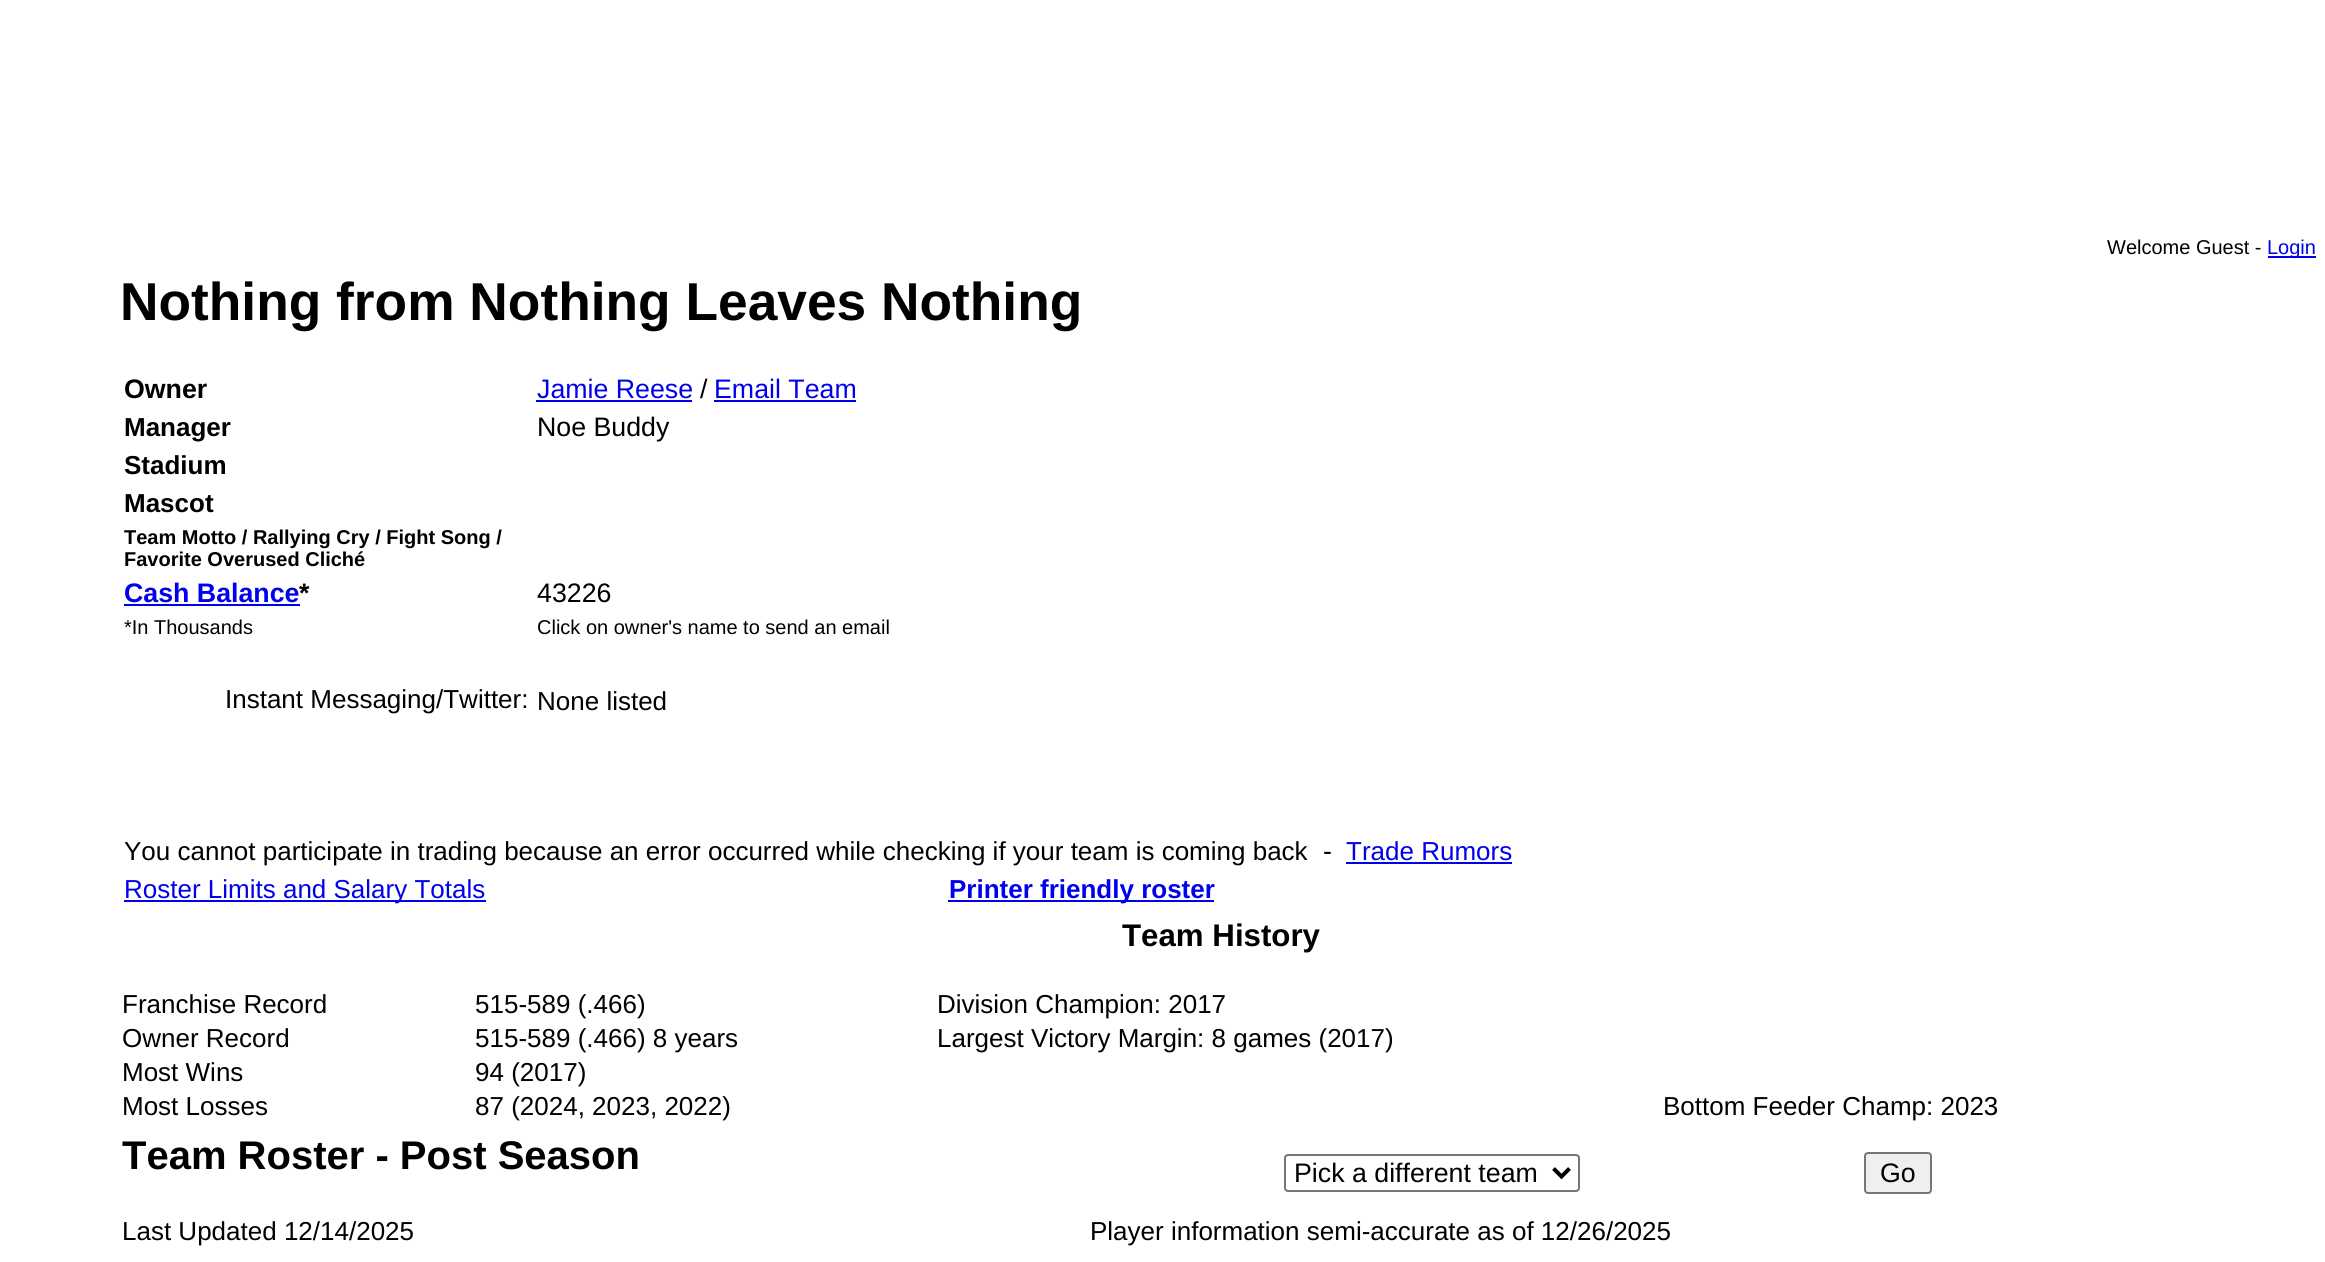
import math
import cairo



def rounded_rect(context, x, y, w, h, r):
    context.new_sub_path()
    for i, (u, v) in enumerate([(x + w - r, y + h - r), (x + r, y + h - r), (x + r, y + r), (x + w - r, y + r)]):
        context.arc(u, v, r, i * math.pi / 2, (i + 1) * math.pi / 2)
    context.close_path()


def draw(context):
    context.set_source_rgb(1, 1, 1)
    context.paint()
    context.set_source_rgb(0, 0, 238 / 255)
    context.rectangle(2268, 256, 48, 2)
    context.fill()
    context.rectangle(536, 400, 156, 2)
    context.fill()
    context.rectangle(714, 400, 142, 2)
    context.fill()
    context.rectangle(124, 604, 176, 2)
    context.fill()
    context.rectangle(1346, 862, 166, 2)
    context.fill()
    context.rectangle(124, 900, 362, 2)
    context.fill()
    context.rectangle(948, 900, 266, 2)
    context.fill()
    rounded_rect(context, 1285, 1155, 294, 36, 3)
    context.set_source_rgb(118 / 255, 118 / 255, 118 / 255)
    context.stroke()
    context.new_path()
    context.move_to(1553.5, 1168.5)
    context.line_to(1561.5, 1176.5)
    context.line_to(1569.5, 1168.5)
    context.set_source_rgb(0, 0, 0)
    context.set_line_width(4)
    context.stroke()
    context.set_source_rgb(239 / 255, 239 / 255, 239 / 255)
    rounded_rect(context, 1865, 1153, 66, 40, 3)
    context.fill_preserve()
    context.set_source_rgb(118 / 255, 118 / 255, 118 / 255)
    context.set_line_width(2)
    context.stroke()
    context.select_font_face("Liberation Sans")
    context.set_font_size(20)
    context.set_source_rgb(0, 0, 0)
    context.move_to(2107, 254)
    context.show_text("Welcome Guest -")
    context.set_source_rgb(0, 0, 238 / 255)
    context.move_to(2267, 254)
    context.show_text("Login")
    context.select_font_face("Liberation Sans", cairo.FontSlant.NORMAL, cairo.FontWeight.BOLD)
    context.set_font_size(53.3)
    context.set_source_rgb(0, 0, 0)
    context.move_to(120, 320)
    context.show_text("Nothing from Nothing Leaves Nothing")
    context.set_font_size(26.75)
    context.move_to(124, 398)
    context.show_text("Owner")
    context.select_font_face("Liberation Sans")
    context.set_source_rgb(0, 0, 238 / 255)
    context.move_to(537, 398)
    context.show_text("Jamie Reese")
    context.set_source_rgb(0, 0, 0)
    context.move_to(700, 398)
    context.show_text("/")
    context.set_source_rgb(0, 0, 238 / 255)
    context.move_to(714, 398)
    context.show_text("Email Team")
    context.select_font_face("Liberation Sans", cairo.FontSlant.NORMAL, cairo.FontWeight.BOLD)
    context.set_font_size(26)
    context.set_source_rgb(0, 0, 0)
    context.move_to(124, 436)
    context.show_text("Manager")
    context.select_font_face("Liberation Sans")
    context.set_font_size(26.75)
    context.move_to(537, 436)
    context.show_text("Noe Buddy")
    context.select_font_face("Liberation Sans", cairo.FontSlant.NORMAL, cairo.FontWeight.BOLD)
    context.set_font_size(26)
    context.move_to(124, 474)
    context.show_text("Stadium")
    context.move_to(124, 512)
    context.show_text("Mascot")
    context.set_font_size(20)
    context.move_to(124, 544)
    context.show_text("Team Motto / Rallying Cry / Fight Song /")
    context.move_to(124, 566)
    context.show_text("Favorite Overused Cliché")
    context.set_font_size(26.75)
    context.set_source_rgb(0, 0, 238 / 255)
    context.move_to(124, 602)
    context.show_text("Cash Balance")
    context.set_source_rgb(0, 0, 0)
    context.move_to(299, 602)
    context.show_text("*")
    context.select_font_face("Liberation Sans")
    context.move_to(537, 602)
    context.show_text("43226")
    context.set_font_size(20)
    context.move_to(124, 634)
    context.show_text("*In Thousands")
    context.move_to(537, 634)
    context.show_text("Click on owner's name to send an email")
    context.set_font_size(26)
    context.move_to(225, 708)
    context.show_text("Instant Messaging/Twitter:")
    context.move_to(537, 710)
    context.show_text("None listed")
    context.move_to(124, 860)
    context.show_text("You cannot participate in trading because an error occurred while checking if your team is coming back")
    context.set_font_size(26.75)
    context.move_to(1323, 860)
    context.show_text("-")
    context.set_font_size(26)
    context.set_source_rgb(0, 0, 238 / 255)
    context.move_to(1346, 860)
    context.show_text("Trade Rumors")
    context.move_to(124, 898)
    context.show_text("Roster Limits and Salary Totals")
    context.select_font_face("Liberation Sans", cairo.FontSlant.NORMAL, cairo.FontWeight.BOLD)
    context.move_to(949, 898)
    context.show_text("Printer friendly roster")
    context.set_font_size(31.25)
    context.set_source_rgb(0, 0, 0)
    context.move_to(1122, 946)
    context.show_text("Team History")
    context.select_font_face("Liberation Sans")
    context.set_font_size(26)
    context.move_to(122, 1013)
    context.show_text("Franchise Record")
    context.move_to(475, 1013)
    context.show_text("515-589 (.466)")
    context.move_to(937, 1013)
    context.show_text("Division Champion: 2017")
    context.move_to(122, 1047)
    context.show_text("Owner Record")
    context.move_to(475, 1047)
    context.show_text("515-589 (.466) 8 years")
    context.move_to(937, 1047)
    context.show_text("Largest Victory Margin: 8 games (2017)")
    context.move_to(122, 1081)
    context.show_text("Most Wins")
    context.move_to(475, 1081)
    context.show_text("94 (2017)")
    context.move_to(122, 1115)
    context.show_text("Most Losses")
    context.move_to(475, 1115)
    context.show_text("87 (2024, 2023, 2022)")
    context.move_to(1663, 1115)
    context.show_text("Bottom Feeder Champ: 2023")
    context.select_font_face("Liberation Sans", cairo.FontSlant.NORMAL, cairo.FontWeight.BOLD)
    context.set_font_size(40)
    context.move_to(122, 1169)
    context.show_text("Team Roster - Post Season")
    context.select_font_face("Liberation Sans")
    context.set_font_size(26.75)
    context.move_to(1294, 1182)
    context.show_text("Pick a different team")
    context.move_to(1880, 1182)
    context.show_text("Go")
    context.set_font_size(26)
    context.move_to(122, 1240)
    context.show_text("Last Updated 12/14/2025")
    context.move_to(1090, 1240)
    context.show_text("Player information semi-accurate as of 12/26/2025")


surface = cairo.ImageSurface(cairo.Format.RGB24, 2325, 1262)
context = cairo.Context(surface)
options = cairo.FontOptions()
options.set_hint_metrics(cairo.HintMetrics.OFF)
options.set_hint_style(cairo.HintStyle.NONE)
context.set_font_options(options)
context.set_miter_limit(4)
draw(context)
surface.write_to_png("out.png")
